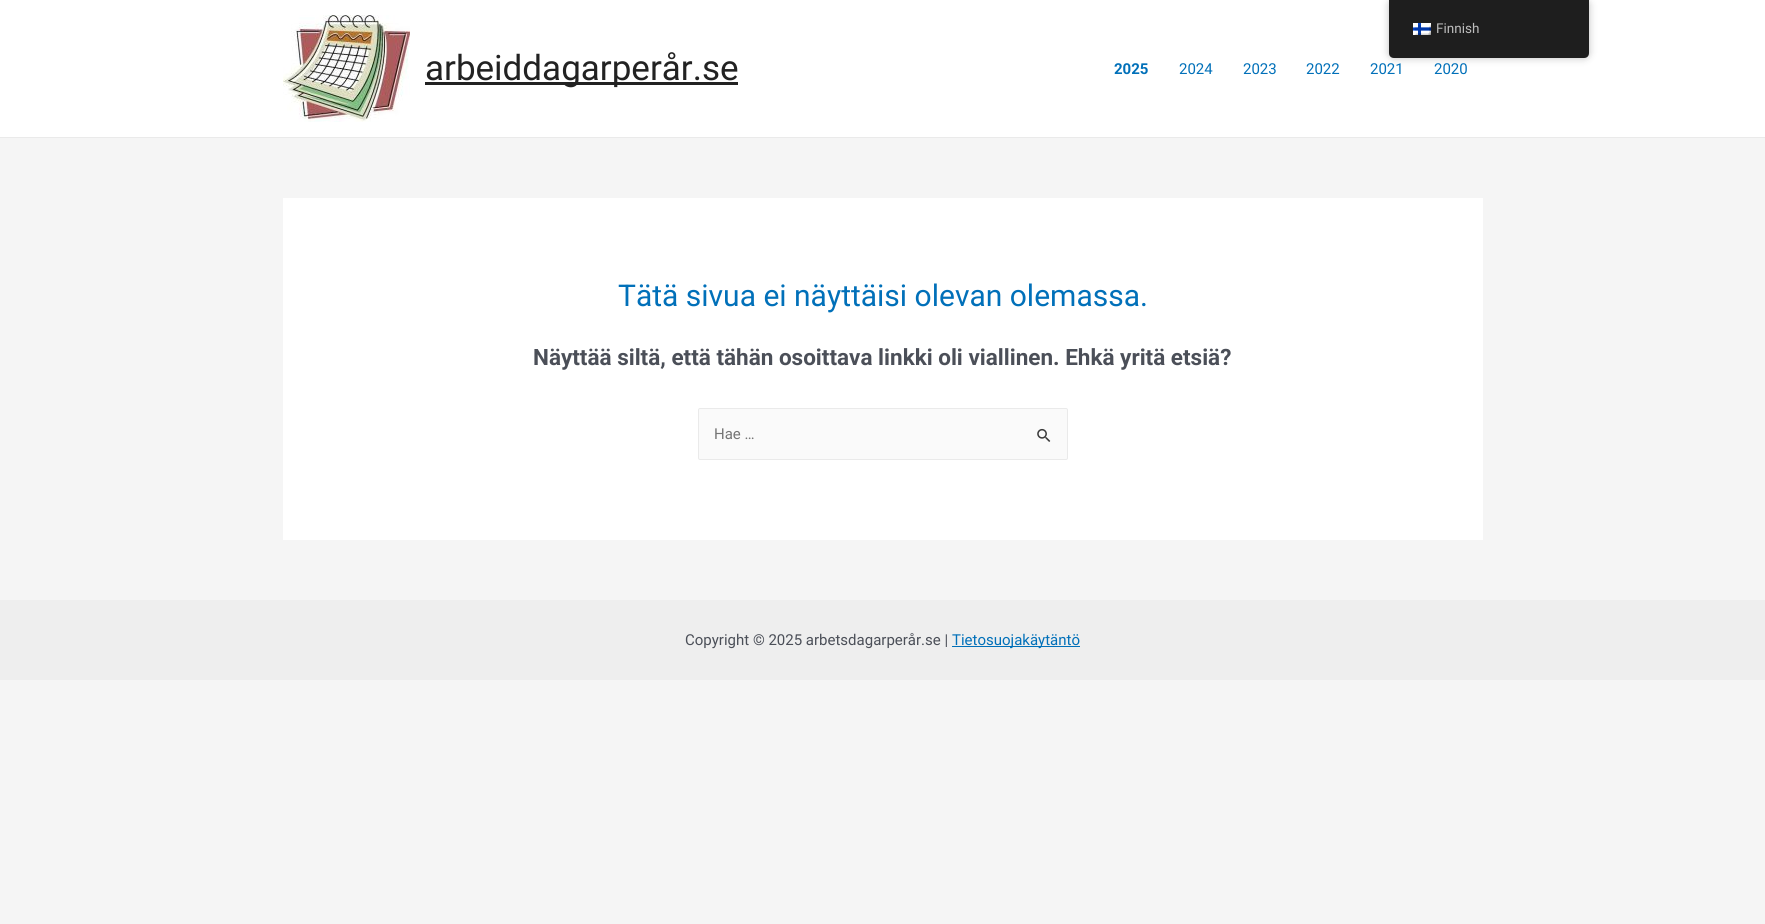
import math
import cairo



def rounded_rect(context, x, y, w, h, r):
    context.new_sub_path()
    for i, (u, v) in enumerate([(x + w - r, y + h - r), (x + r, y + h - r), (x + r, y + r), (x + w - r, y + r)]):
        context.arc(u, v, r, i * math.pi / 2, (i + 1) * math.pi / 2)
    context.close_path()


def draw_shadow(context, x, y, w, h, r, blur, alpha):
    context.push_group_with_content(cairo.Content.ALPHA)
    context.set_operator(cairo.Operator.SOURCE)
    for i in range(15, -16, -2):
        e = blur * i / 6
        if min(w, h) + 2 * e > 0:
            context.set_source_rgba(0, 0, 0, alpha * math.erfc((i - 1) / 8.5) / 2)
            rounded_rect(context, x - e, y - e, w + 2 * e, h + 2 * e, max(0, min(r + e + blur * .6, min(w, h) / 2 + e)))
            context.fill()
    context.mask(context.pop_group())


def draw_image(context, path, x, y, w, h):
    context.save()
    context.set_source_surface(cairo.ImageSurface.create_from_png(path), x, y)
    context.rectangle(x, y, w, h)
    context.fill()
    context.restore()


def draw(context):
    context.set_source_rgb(245 / 255, 245 / 255, 245 / 255)
    context.paint()
    context.set_source_rgb(1, 1, 1)
    context.rectangle(0, 0, 1765, 137)
    context.fill()
    context.set_source_rgb(0, 0, 0)
    draw_shadow(context, 1389, 0, 200, 58, 5, 4, 0.25)
    context.set_source_rgb(30 / 255, 30 / 255, 30 / 255)
    context.new_path()
    context.move_to(1389, 0)
    context.line_to(1589, 0)
    context.line_to(1589, 53)
    context.curve_to(1589, 56, 1587, 58, 1584, 58)
    context.line_to(1394, 58)
    context.curve_to(1391, 58, 1389, 56, 1389, 53)
    context.close_path()
    context.fill()
    draw_image(context, "images/1.png", 1413, 23, 18, 12)
    context.set_source_rgb(234 / 255, 234 / 255, 234 / 255)
    context.rectangle(0, 137, 1765, 1)
    context.fill()
    draw_image(context, "images/2.png", 283, 15, 127, 107)
    context.set_source_rgb(34 / 255, 34 / 255, 34 / 255)
    context.rectangle(425, 82, 313, 3)
    context.fill()
    context.set_source_rgb(1, 1, 1)
    context.rectangle(283, 198, 1200, 342)
    context.fill()
    context.set_source_rgb(250 / 255, 250 / 255, 250 / 255)
    rounded_rect(context, 698.5, 408.5, 369, 51, 1.5)
    context.fill_preserve()
    context.set_source_rgb(234 / 255, 234 / 255, 234 / 255)
    context.set_line_width(1)
    context.stroke()
    draw_image(context, "images/3.png", 1037, 428, 14, 14)
    context.set_source_rgb(238 / 255, 238 / 255, 238 / 255)
    context.rectangle(0, 600, 1765, 80)
    context.fill()
    context.set_source_rgb(1 / 255, 112 / 255, 185 / 255)
    context.rectangle(952, 646, 128, 1)
    context.fill()
    context.select_font_face("Roboto")
    context.set_font_size(13.5)
    context.set_source_rgb(189 / 255, 189 / 255, 189 / 255)
    context.move_to(1436, 33)
    context.show_text("Finnish")
    context.set_font_size(35)
    context.set_source_rgb(34 / 255, 34 / 255, 34 / 255)
    context.move_to(425, 80)
    context.show_text("arbeiddagarperår.se")
    context.select_font_face("Roboto", cairo.FontSlant.NORMAL, cairo.FontWeight.BOLD)
    context.set_font_size(15)
    context.set_source_rgb(1 / 255, 112 / 255, 185 / 255)
    context.move_to(1114, 74)
    context.show_text("2025")
    context.select_font_face("Roboto")
    context.move_to(1179, 74)
    context.show_text("2024")
    context.move_to(1243, 74)
    context.show_text("2023")
    context.move_to(1306, 74)
    context.show_text("2022")
    context.move_to(1370, 74)
    context.show_text("2021")
    context.move_to(1434, 74)
    context.show_text("2020")
    context.set_font_size(30)
    context.move_to(618, 306)
    context.show_text("Tätä sivua ei näyttäisi olevan olemassa.")
    context.select_font_face("Roboto", cairo.FontSlant.NORMAL, cairo.FontWeight.BOLD)
    context.set_font_size(22.5)
    context.set_source_rgb(75 / 255, 79 / 255, 88 / 255)
    context.move_to(533, 365)
    context.show_text("Näyttää siltä, että tähän osoittava linkki oli viallinen. Ehkä yritä etsiä?")
    context.select_font_face("Roboto")
    context.set_font_size(15)
    context.set_source_rgb(117 / 255, 117 / 255, 117 / 255)
    context.move_to(714, 439)
    context.show_text("Hae …")
    context.set_source_rgb(75 / 255, 79 / 255, 88 / 255)
    context.move_to(685, 645)
    context.show_text("Copyright © 2025 arbetsdagarperår.se |")
    context.set_source_rgb(1 / 255, 112 / 255, 185 / 255)
    context.move_to(952, 645)
    context.show_text("Tietosuojakäytäntö")


surface = cairo.ImageSurface(cairo.Format.RGB24, 1765, 924)
context = cairo.Context(surface)
options = cairo.FontOptions()
options.set_hint_metrics(cairo.HintMetrics.OFF)
options.set_hint_style(cairo.HintStyle.NONE)
context.set_font_options(options)
context.set_miter_limit(4)
draw(context)
surface.write_to_png("out.png")
